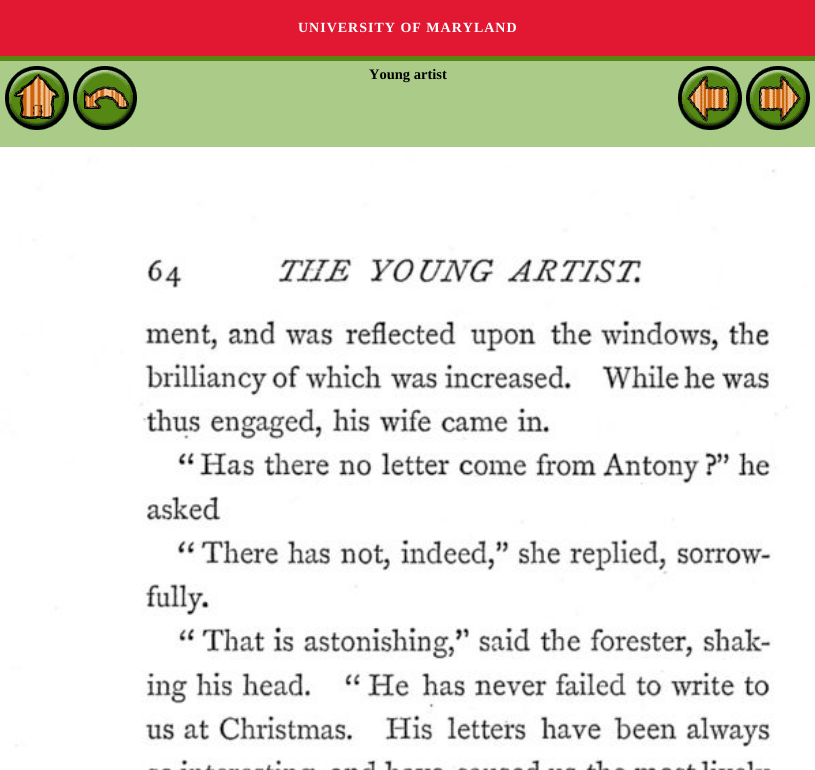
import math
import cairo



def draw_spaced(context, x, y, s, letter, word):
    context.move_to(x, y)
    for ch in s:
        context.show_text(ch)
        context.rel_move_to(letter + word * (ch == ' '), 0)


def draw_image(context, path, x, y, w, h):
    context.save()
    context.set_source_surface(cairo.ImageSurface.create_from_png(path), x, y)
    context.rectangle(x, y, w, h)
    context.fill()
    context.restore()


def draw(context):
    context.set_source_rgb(170 / 255, 204 / 255, 136 / 255)
    context.paint()
    context.set_source_rgb(226 / 255, 24 / 255, 51 / 255)
    context.rectangle(0, 0, 815, 56)
    context.fill()
    context.set_source_rgb(85 / 255, 136 / 255, 17 / 255)
    context.rectangle(0, 56, 815, 5)
    context.fill()
    draw_image(context, "images/1.png", 5, 66, 64, 64)
    draw_image(context, "images/2.png", 73, 66, 64, 64)
    draw_image(context, "images/3.png", 678, 66, 64, 64)
    draw_image(context, "images/4.png", 746, 66, 64, 64)
    draw_image(context, "images/5.png", 0, 147, 815, 623)
    context.select_font_face("Liberation Serif", cairo.FontSlant.NORMAL, cairo.FontWeight.BOLD)
    context.set_font_size(14)
    context.set_source_rgb(1, 1, 1)
    draw_spaced(context, 298, 32, "UNIVERSITY OF MARYLAND", 1, 0)
    context.set_font_size(14.5)
    context.set_source_rgb(0, 0, 0)
    context.move_to(369, 79)
    context.show_text("Young artist")


surface = cairo.ImageSurface(cairo.Format.RGB24, 815, 770)
context = cairo.Context(surface)
options = cairo.FontOptions()
options.set_hint_metrics(cairo.HintMetrics.OFF)
options.set_hint_style(cairo.HintStyle.NONE)
context.set_font_options(options)
context.set_miter_limit(4)
draw(context)
surface.write_to_png("out.png")
